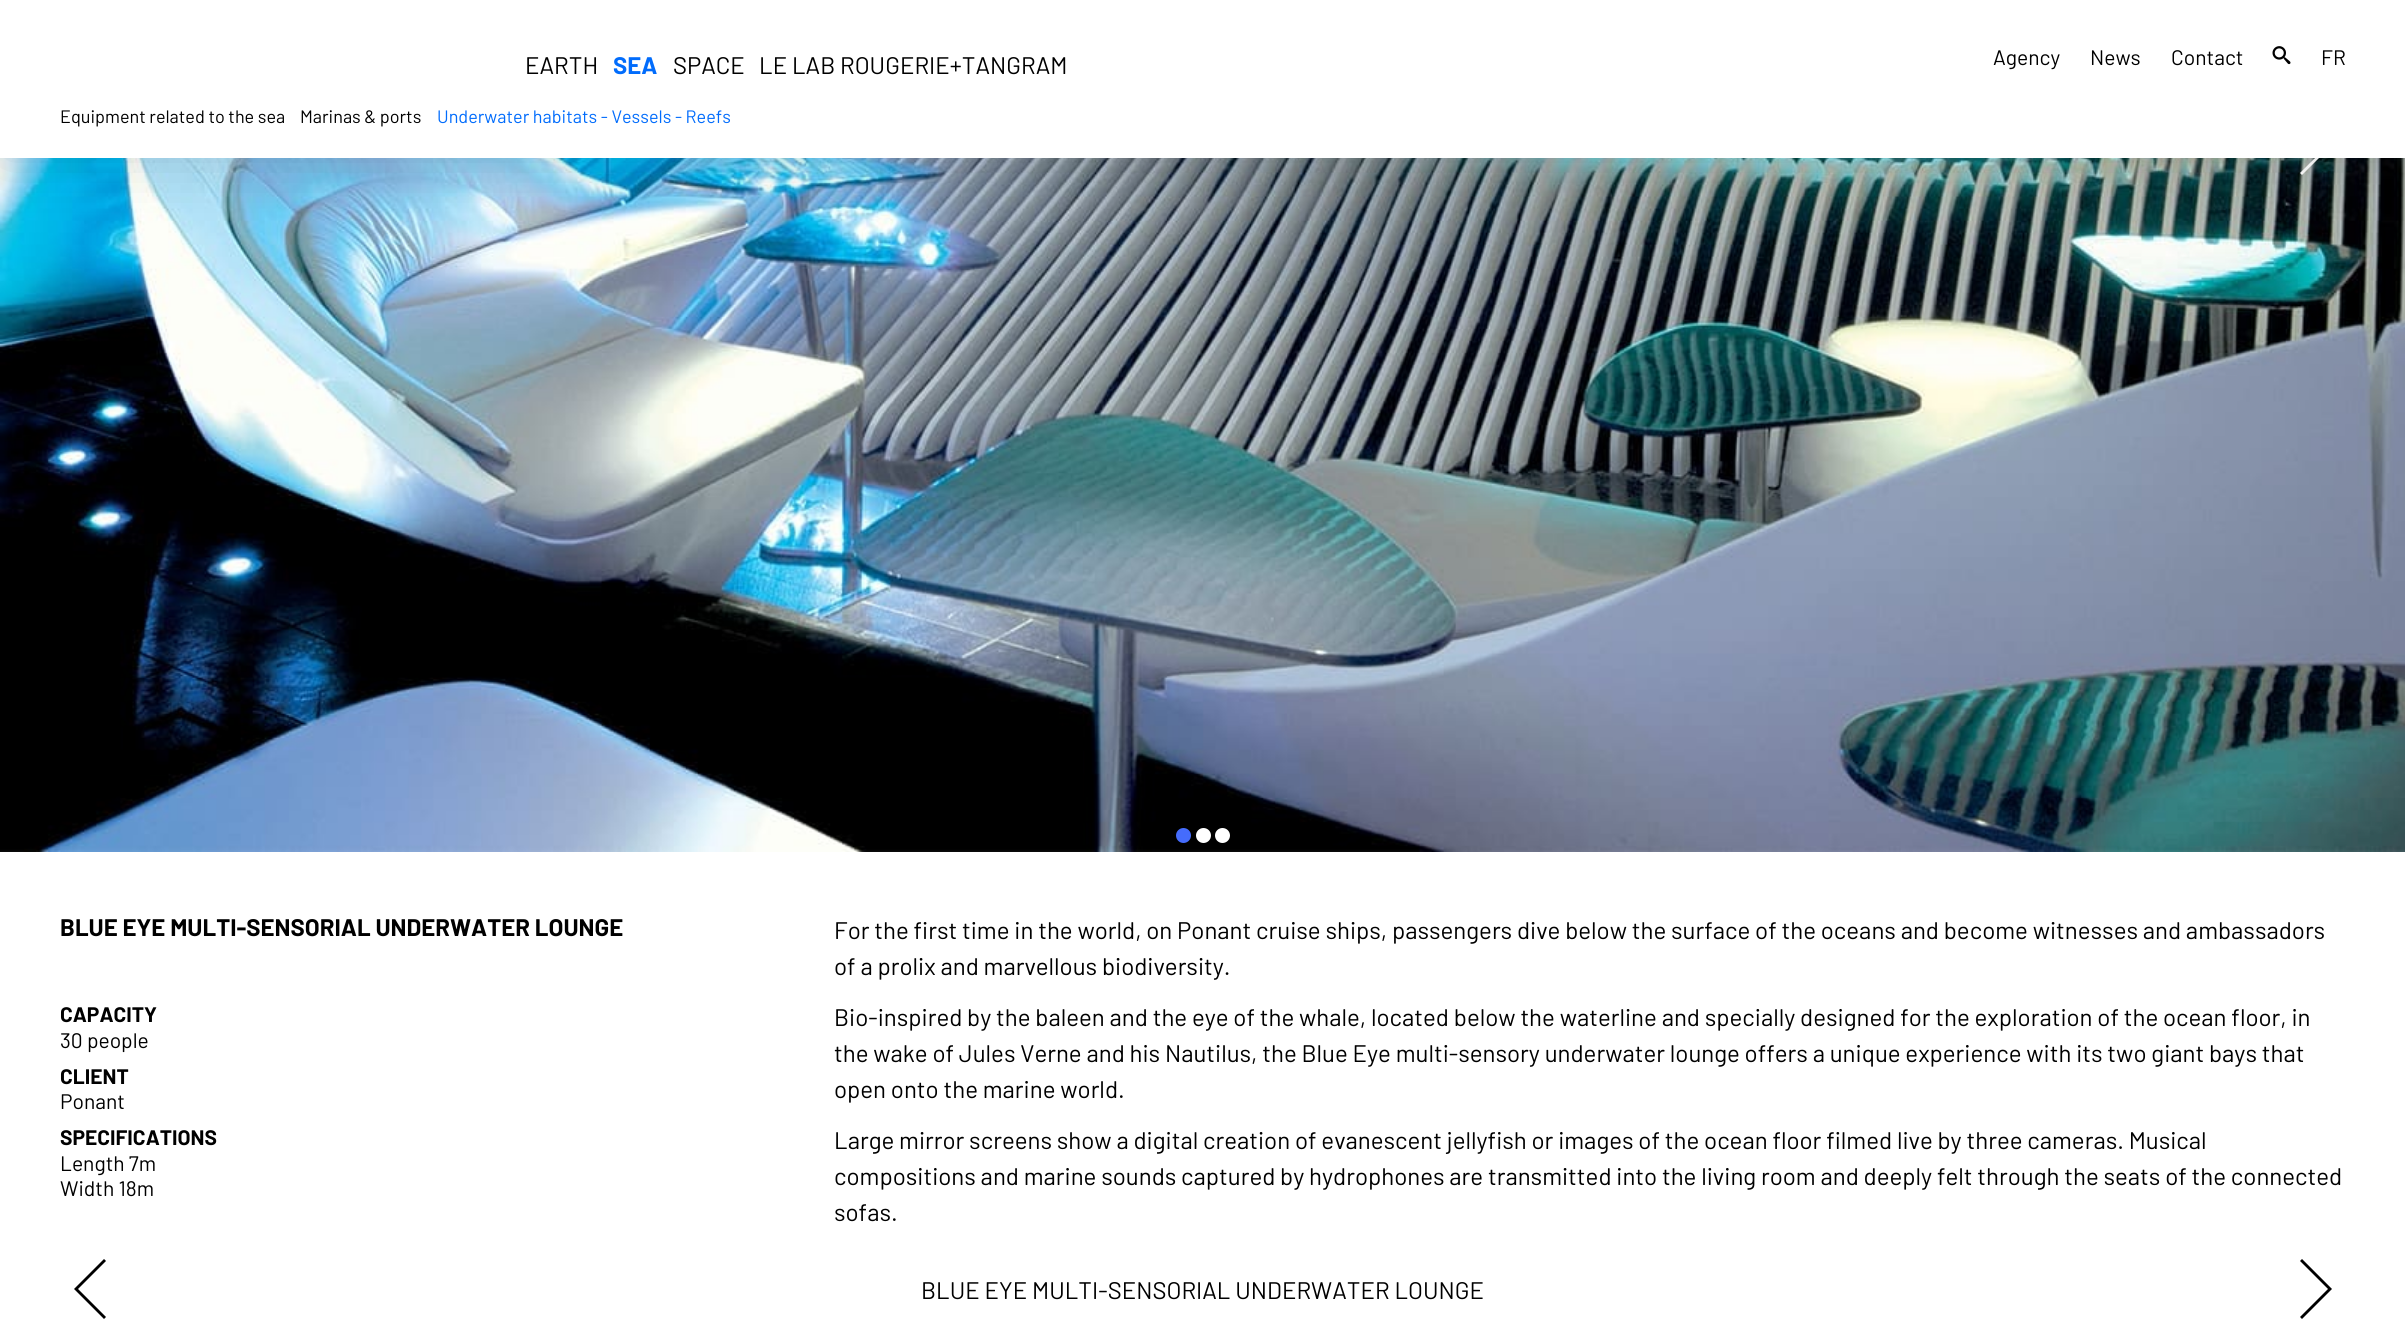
import math
import cairo



def rounded_rect(context, x, y, w, h, r):
    context.new_sub_path()
    for i, (u, v) in enumerate([(x + w - r, y + h - r), (x + r, y + h - r), (x + r, y + r), (x + w - r, y + r)]):
        context.arc(u, v, r, i * math.pi / 2, (i + 1) * math.pi / 2)
    context.close_path()


def draw_shadow(context, x, y, w, h, r, blur, alpha):
    context.push_group_with_content(cairo.Content.ALPHA)
    context.set_operator(cairo.Operator.SOURCE)
    for i in range(15, -16, -2):
        e = blur * i / 6
        if min(w, h) + 2 * e > 0:
            context.set_source_rgba(0, 0, 0, alpha * math.erfc((i - 1) / 8.5) / 2)
            rounded_rect(context, x - e, y - e, w + 2 * e, h + 2 * e, max(0, min(r + e + blur * .6, min(w, h) / 2 + e)))
            context.fill()
    context.mask(context.pop_group())


def draw_image(context, path, x, y, w, h):
    context.save()
    context.set_source_surface(cairo.ImageSurface.create_from_png(path), x, y)
    context.rectangle(x, y, w, h)
    context.fill()
    context.restore()


def draw(context):
    context.set_source_rgb(1, 1, 1)
    context.paint()
    draw_image(context, "images/2.png", 0, 158, 2405, 694)
    context.set_source_rgb(1, 1, 1)
    context.new_path()
    context.move_to(2330, 143)
    context.line_to(2302, 115)
    context.line_to(2300, 117)
    context.line_to(2328, 145)
    context.line_to(2300, 173)
    context.line_to(2302, 175)
    context.line_to(2332, 145)
    context.close_path()
    context.fill()
    context.set_source_rgb(0, 0, 0)
    draw_shadow(context, 0, 0, 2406, 158, 0, 30, 0.15)
    context.set_source_rgb(1, 1, 1)
    context.rectangle(0, 0, 2405, 158)
    context.fill()
    draw_image(context, "images/1.png", 2272, 46, 19, 19)
    context.set_source_rgb(69 / 255, 108 / 255, 252 / 255)
    context.arc(1183.5, 835.5, 7.5, 0, 2 * math.pi)
    context.fill()
    context.set_source_rgb(1, 1, 1)
    context.arc(1203.5, 835.5, 7.5, 0, 2 * math.pi)
    context.fill()
    context.arc(1222.5, 835.5, 7.5, 0, 2 * math.pi)
    context.fill()
    context.set_source_rgb(0, 0, 0)
    context.new_path()
    context.move_to(76, 1291)
    context.line_to(104, 1319)
    context.line_to(106, 1317)
    context.line_to(78, 1289)
    context.line_to(106, 1261)
    context.line_to(104, 1259)
    context.line_to(74, 1289)
    context.close_path()
    context.fill()
    context.new_path()
    context.move_to(2330, 1287)
    context.line_to(2302, 1259)
    context.line_to(2300, 1261)
    context.line_to(2328, 1289)
    context.line_to(2300, 1317)
    context.line_to(2302, 1319)
    context.line_to(2332, 1289)
    context.close_path()
    context.fill()
    context.select_font_face("Barlow")
    context.set_font_size(24)
    context.move_to(525, 74)
    context.show_text("EARTH")
    context.select_font_face("Barlow", cairo.FontSlant.NORMAL, cairo.FontWeight.BOLD)
    context.set_source_rgb(1 / 255, 108 / 255, 252 / 255)
    context.move_to(613, 74)
    context.show_text("SEA")
    context.select_font_face("Barlow")
    context.set_source_rgb(0, 0, 0)
    context.move_to(673, 74)
    context.show_text("SPACE")
    context.move_to(759, 74)
    context.show_text("LE LAB ROUGERIE+TANGRAM")
    context.set_font_size(21)
    context.move_to(1993, 65)
    context.show_text("Agency")
    context.move_to(2090, 65)
    context.show_text("News")
    context.move_to(2171, 65)
    context.show_text("Contact")
    context.move_to(2321, 65)
    context.show_text("FR")
    context.set_font_size(18)
    context.move_to(60, 123)
    context.show_text("Equipment related to the sea")
    context.move_to(300, 123)
    context.show_text("Marinas & ports")
    context.set_source_rgb(1 / 255, 108 / 255, 252 / 255)
    context.move_to(437, 123)
    context.show_text("Underwater habitats - Vessels - Reefs")
    context.select_font_face("Barlow", cairo.FontSlant.NORMAL, cairo.FontWeight.BOLD)
    context.set_font_size(24)
    context.set_source_rgb(0, 0, 0)
    context.move_to(60, 936)
    context.show_text("BLUE EYE MULTI-SENSORIAL UNDERWATER LOUNGE")
    context.set_font_size(21)
    context.move_to(60, 1022)
    context.show_text("CAPACITY")
    context.select_font_face("Barlow")
    context.move_to(60, 1048)
    context.show_text("30 people")
    context.select_font_face("Barlow", cairo.FontSlant.NORMAL, cairo.FontWeight.BOLD)
    context.move_to(60, 1084)
    context.show_text("CLIENT")
    context.select_font_face("Barlow")
    context.move_to(60, 1109)
    context.show_text("Ponant")
    context.select_font_face("Barlow", cairo.FontSlant.NORMAL, cairo.FontWeight.BOLD)
    context.move_to(60, 1145)
    context.show_text("SPECIFICATIONS")
    context.select_font_face("Barlow")
    context.move_to(60, 1171)
    context.show_text("Length 7m")
    context.move_to(60, 1196)
    context.show_text("Width 18m")
    context.set_font_size(24)
    context.move_to(834, 939)
    context.show_text("For the first time in the world, on Ponant cruise ships, passengers dive below the surface of the oceans and become witnesses and ambassadors")
    context.move_to(834, 975)
    context.show_text("of a prolix and marvellous biodiversity.")
    context.move_to(834, 1026)
    context.show_text("Bio-inspired by the baleen and the eye of the whale, located below the waterline and specially designed for the exploration of the ocean floor, in")
    context.move_to(834, 1062)
    context.show_text("the wake of Jules Verne and his Nautilus, the Blue Eye multi-sensory underwater lounge offers a unique experience with its two giant bays that")
    context.move_to(834, 1098)
    context.show_text("open onto the marine world.")
    context.move_to(834, 1149)
    context.show_text("Large mirror screens show a digital creation of evanescent jellyfish or images of the ocean floor filmed live by three cameras. Musical")
    context.move_to(834, 1185)
    context.show_text("compositions and marine sounds captured by hydrophones are transmitted into the living room and deeply felt through the seats of the connected")
    context.move_to(834, 1221)
    context.show_text("sofas.")
    context.move_to(921, 1299)
    context.show_text("BLUE EYE MULTI-SENSORIAL UNDERWATER LOUNGE")


surface = cairo.ImageSurface(cairo.Format.RGB24, 2405, 1337)
context = cairo.Context(surface)
options = cairo.FontOptions()
options.set_hint_metrics(cairo.HintMetrics.OFF)
options.set_hint_style(cairo.HintStyle.NONE)
context.set_font_options(options)
context.set_miter_limit(4)
draw(context)
surface.write_to_png("out.png")
